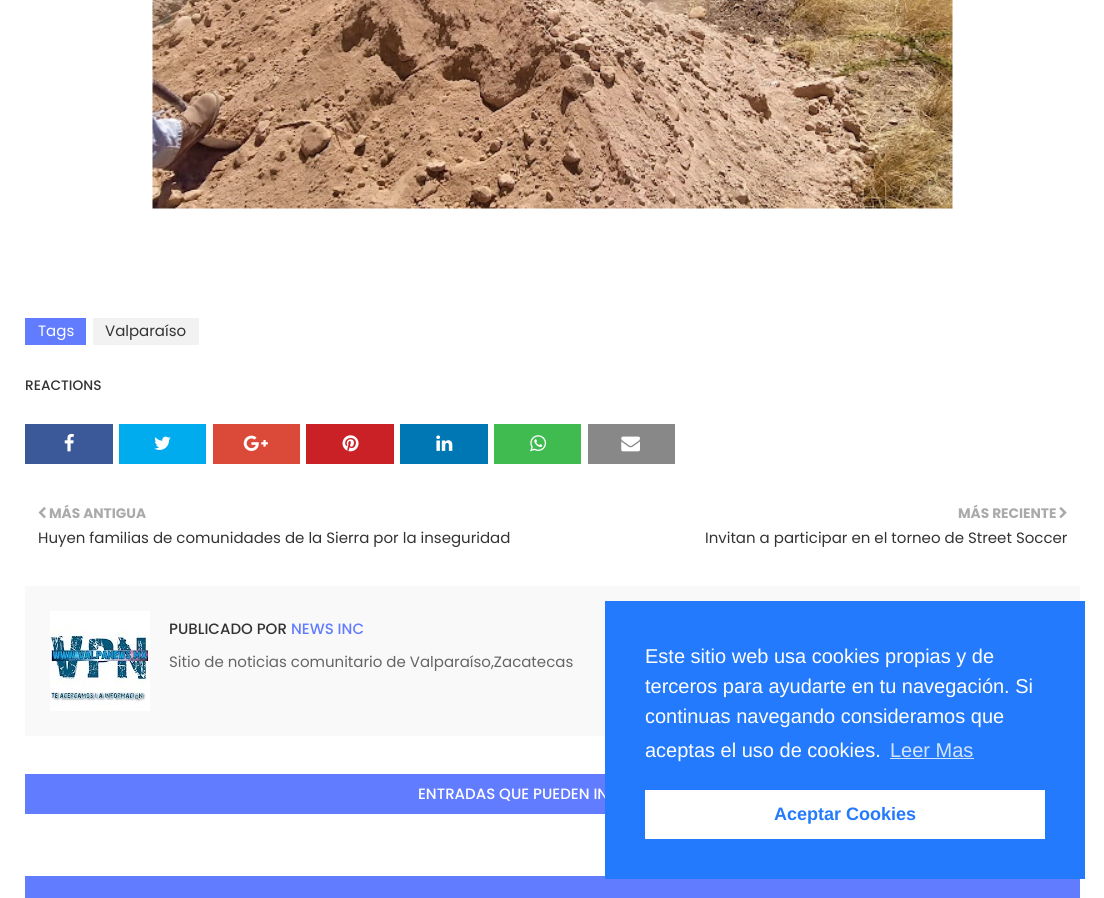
import math
import cairo



def draw_image(context, path, x, y, w, h):
    context.save()
    context.set_source_surface(cairo.ImageSurface.create_from_png(path), x, y)
    context.rectangle(x, y, w, h)
    context.fill()
    context.restore()


def draw(context):
    context.set_source_rgb(1, 1, 1)
    context.paint()
    draw_image(context, "images/1.png", 152, 0, 801, 209)
    context.set_source_rgb(98 / 255, 124 / 255, 1)
    context.rectangle(25, 318, 61, 27)
    context.fill()
    context.set_source_rgb(242 / 255, 242 / 255, 242 / 255)
    context.rectangle(93, 318, 106, 27)
    context.fill()
    context.set_source_rgb(59 / 255, 89 / 255, 153 / 255)
    context.rectangle(25, 424, 88, 40)
    context.fill()
    draw_image(context, "images/2.png", 64, 433, 10, 19)
    context.set_source_rgb(0, 172 / 255, 238 / 255)
    context.rectangle(119, 424, 87, 40)
    context.fill()
    draw_image(context, "images/3.png", 154, 436, 17, 14)
    context.set_source_rgb(219 / 255, 74 / 255, 57 / 255)
    context.rectangle(213, 424, 87, 40)
    context.fill()
    draw_image(context, "images/4.png", 243, 435, 25, 16)
    context.set_source_rgb(202 / 255, 33 / 255, 39 / 255)
    context.rectangle(306, 424, 88, 40)
    context.fill()
    draw_image(context, "images/5.png", 342, 435, 17, 17)
    context.set_source_rgb(0, 119 / 255, 181 / 255)
    context.rectangle(400, 424, 88, 40)
    context.fill()
    draw_image(context, "images/6.png", 436, 435, 17, 16)
    context.set_source_rgb(63 / 255, 187 / 255, 80 / 255)
    context.rectangle(494, 424, 87, 40)
    context.fill()
    draw_image(context, "images/7.png", 530, 435, 17, 17)
    context.set_source_rgb(136 / 255, 136 / 255, 136 / 255)
    context.rectangle(588, 424, 87, 40)
    context.fill()
    draw_image(context, "images/8.png", 621, 436, 19, 16)
    draw_image(context, "images/9.png", 38, 507, 8, 12)
    draw_image(context, "images/10.png", 1059, 507, 8, 12)
    context.set_source_rgb(249 / 255, 249 / 255, 249 / 255)
    context.rectangle(25, 586, 1055, 150)
    context.fill()
    draw_image(context, "images/11.png", 50, 611, 100, 100)
    context.set_source_rgb(98 / 255, 124 / 255, 1)
    context.rectangle(25, 774, 580, 40)
    context.fill()
    context.rectangle(25, 876, 1055, 22)
    context.fill()
    context.select_font_face("Poppins")
    context.set_font_size(15)
    context.set_source_rgb(1, 1, 1)
    context.move_to(38, 336)
    context.show_text("Tags")
    context.set_source_rgb(51 / 255, 51 / 255, 51 / 255)
    context.move_to(105, 336)
    context.show_text("Valparaíso")
    context.select_font_face("Poppins Medium")
    context.set_font_size(13.75)
    context.move_to(25, 390)
    context.show_text("REACTIONS")
    context.select_font_face("Poppins", cairo.FontSlant.NORMAL, cairo.FontWeight.BOLD)
    context.set_source_rgb(170 / 255, 170 / 255, 170 / 255)
    context.move_to(49, 518)
    context.show_text("MÁS ANTIGUA")
    context.select_font_face("Poppins")
    context.set_font_size(15)
    context.set_source_rgb(51 / 255, 51 / 255, 51 / 255)
    context.move_to(38, 543)
    context.show_text("Huyen familias de comunidades de la Sierra por la inseguridad")
    context.select_font_face("Poppins", cairo.FontSlant.NORMAL, cairo.FontWeight.BOLD)
    context.set_font_size(13.75)
    context.set_source_rgb(170 / 255, 170 / 255, 170 / 255)
    context.move_to(958, 518)
    context.show_text("MÁS RECIENTE")
    context.select_font_face("Poppins")
    context.set_font_size(15)
    context.set_source_rgb(51 / 255, 51 / 255, 51 / 255)
    context.move_to(705, 543)
    context.show_text("Invitan a participar en el torneo de Street Soccer")
    context.select_font_face("Poppins Medium")
    context.move_to(169, 634)
    context.show_text("PUBLICADO POR")
    context.set_source_rgb(98 / 255, 124 / 255, 1)
    context.move_to(291, 634)
    context.show_text("NEWS INC")
    context.select_font_face("Poppins")
    context.set_source_rgb(101 / 255, 101 / 255, 101 / 255)
    context.move_to(169, 667)
    context.show_text("Sitio de noticias comunitario de Valparaíso,Zacatecas")
    context.select_font_face("Poppins Medium")
    context.set_source_rgb(1, 1, 1)
    context.move_to(418, 799)
    context.show_text("ENTRADAS QUE PUEDEN IN")
    context.set_source_rgb(35 / 255, 122 / 255, 252 / 255)
    context.rectangle(605, 601, 480, 278)
    context.fill()
    context.select_font_face("Liberation Sans")
    context.set_font_size(20)
    context.set_source_rgb(1, 1, 1)
    context.move_to(645, 663)
    context.show_text("Este sitio web usa cookies propias y de")
    context.move_to(645, 693)
    context.show_text("terceros para ayudarte en tu navegación. Si")
    context.move_to(645, 723)
    context.show_text("continuas navegando consideramos que")
    context.move_to(645, 757)
    context.show_text("aceptas el uso de cookies.")
    context.set_source_rgb(211 / 255, 228 / 255, 254 / 255)
    context.move_to(890, 757)
    context.show_text("Leer Mas")
    context.rectangle(890, 758, 84, 1)
    context.fill()
    context.set_source_rgb(1, 1, 1)
    context.rectangle(645, 790, 400, 49)
    context.fill()
    context.select_font_face("Liberation Sans", cairo.FontSlant.NORMAL, cairo.FontWeight.BOLD)
    context.set_font_size(18)
    context.set_source_rgb(35 / 255, 122 / 255, 252 / 255)
    context.move_to(774, 820)
    context.show_text("Aceptar Cookies")


surface = cairo.ImageSurface(cairo.Format.RGB24, 1104, 898)
context = cairo.Context(surface)
options = cairo.FontOptions()
options.set_hint_metrics(cairo.HintMetrics.OFF)
options.set_hint_style(cairo.HintStyle.NONE)
context.set_font_options(options)
context.set_miter_limit(4)
draw(context)
surface.write_to_png("out.png")
